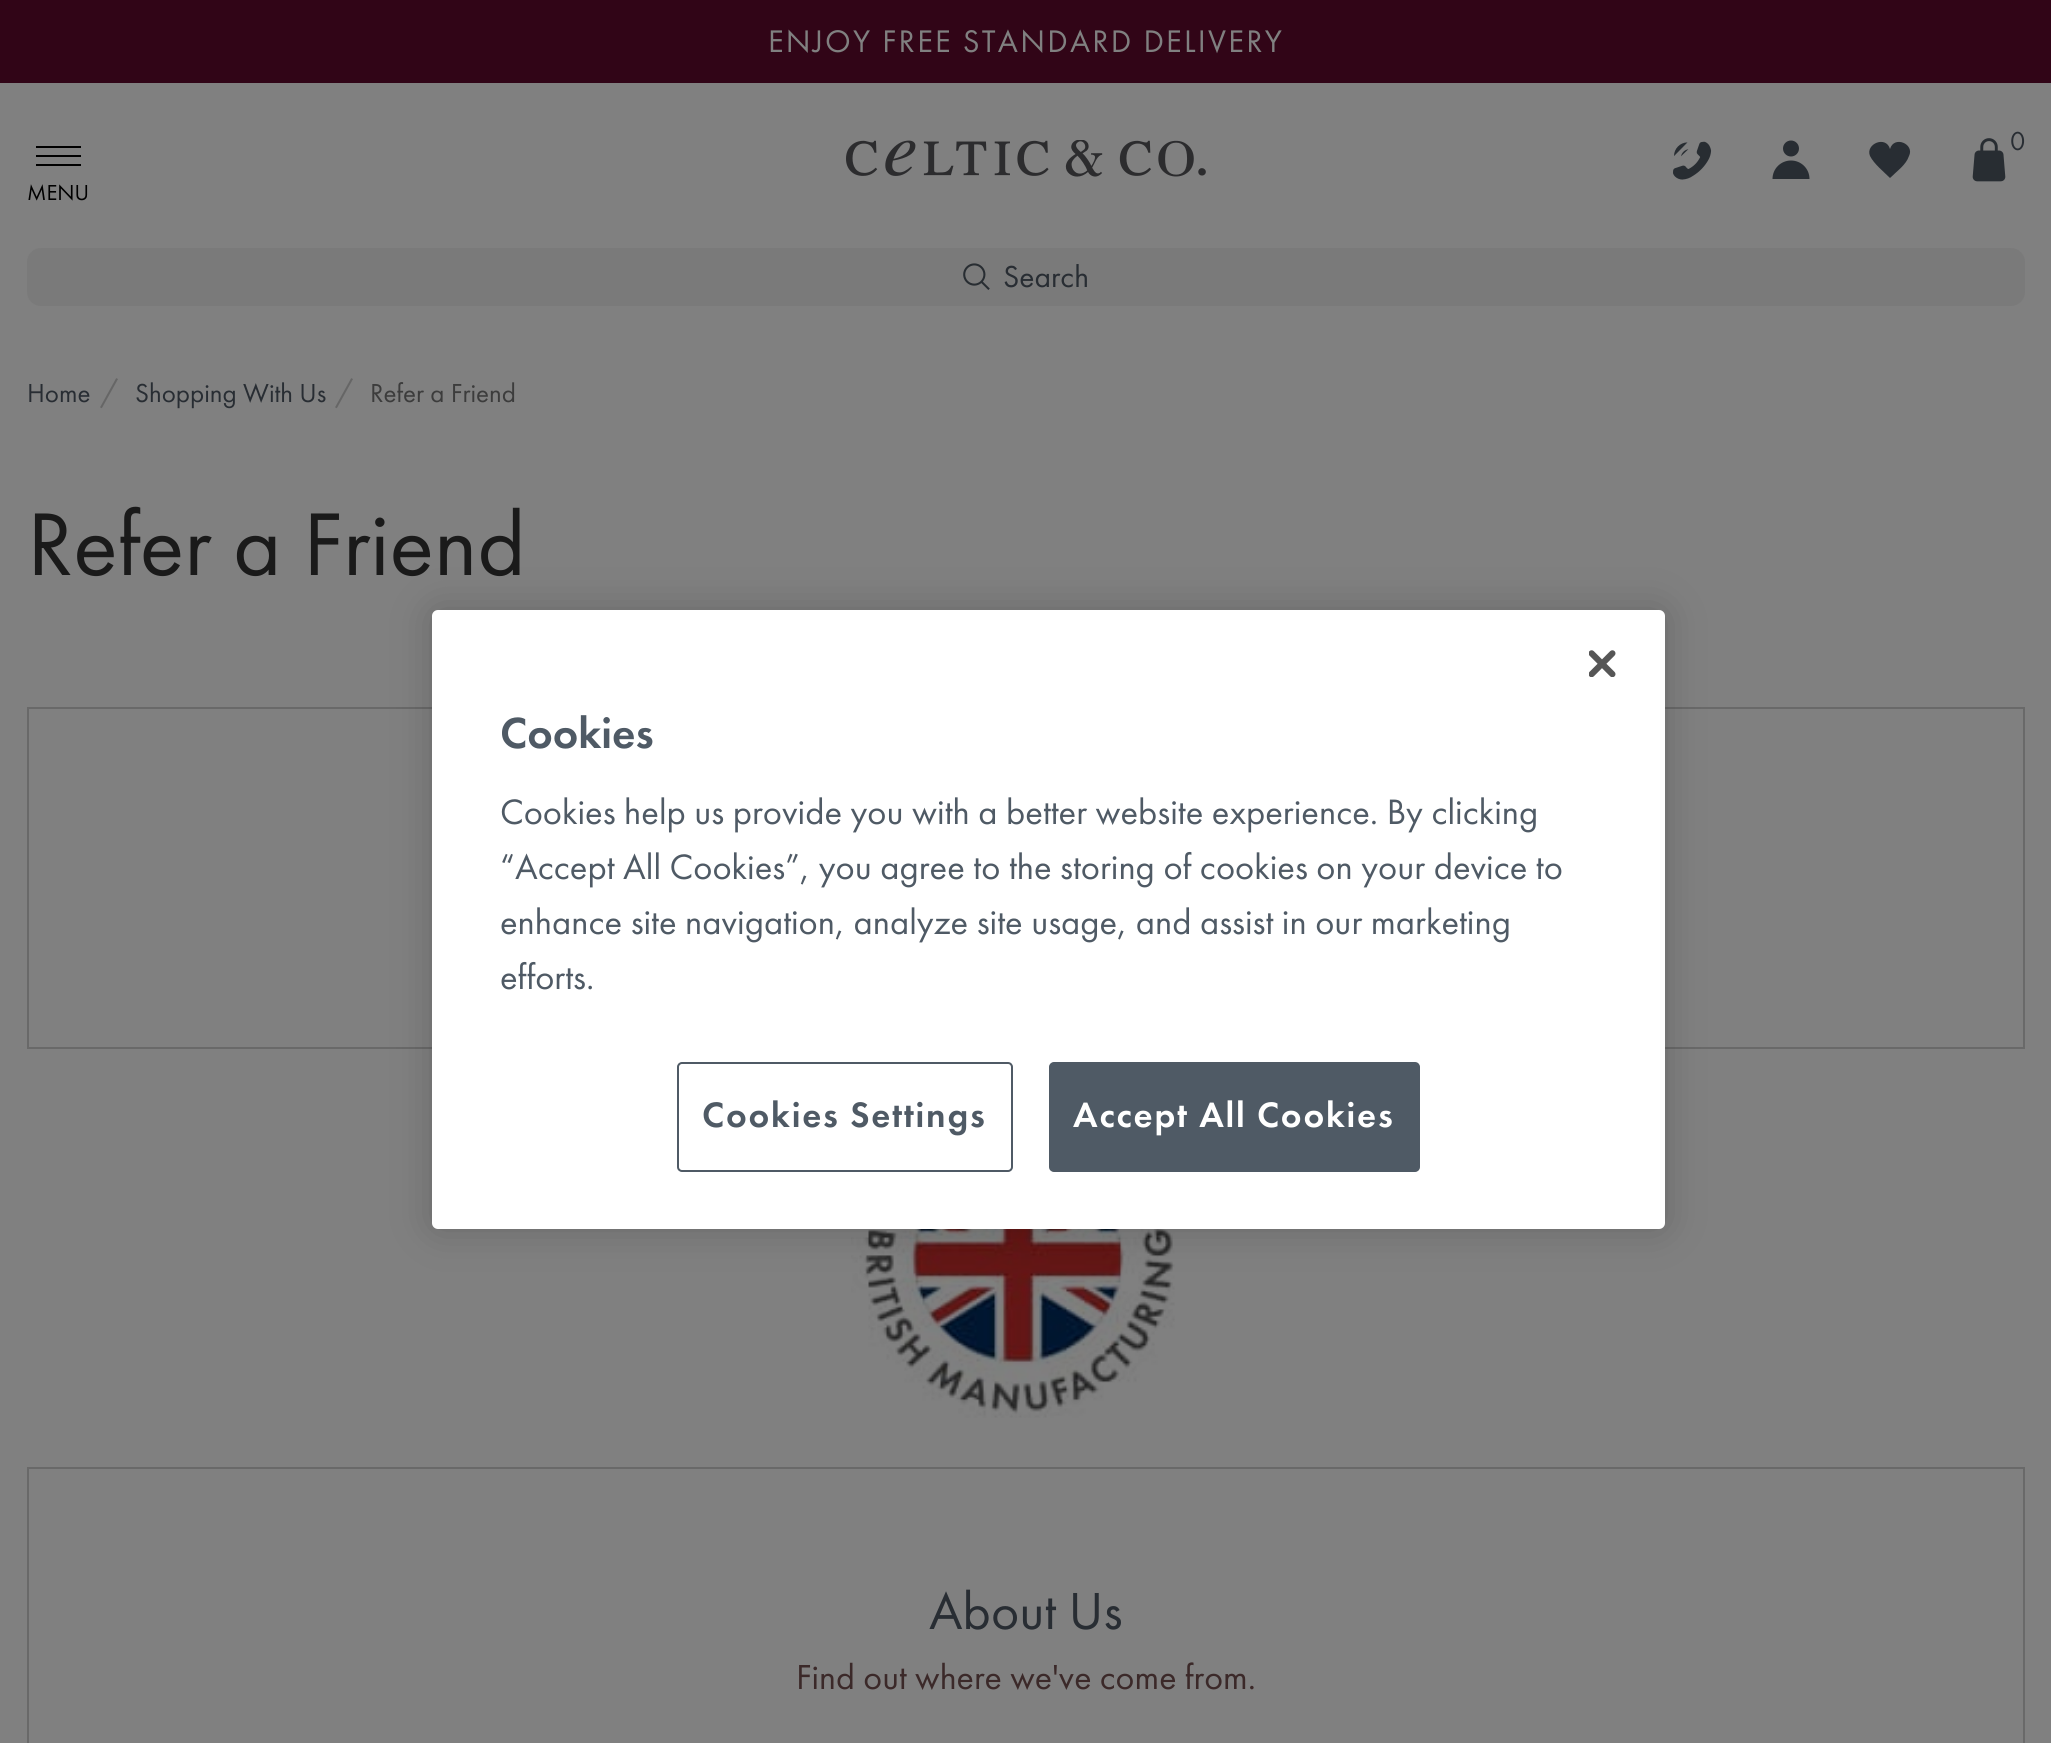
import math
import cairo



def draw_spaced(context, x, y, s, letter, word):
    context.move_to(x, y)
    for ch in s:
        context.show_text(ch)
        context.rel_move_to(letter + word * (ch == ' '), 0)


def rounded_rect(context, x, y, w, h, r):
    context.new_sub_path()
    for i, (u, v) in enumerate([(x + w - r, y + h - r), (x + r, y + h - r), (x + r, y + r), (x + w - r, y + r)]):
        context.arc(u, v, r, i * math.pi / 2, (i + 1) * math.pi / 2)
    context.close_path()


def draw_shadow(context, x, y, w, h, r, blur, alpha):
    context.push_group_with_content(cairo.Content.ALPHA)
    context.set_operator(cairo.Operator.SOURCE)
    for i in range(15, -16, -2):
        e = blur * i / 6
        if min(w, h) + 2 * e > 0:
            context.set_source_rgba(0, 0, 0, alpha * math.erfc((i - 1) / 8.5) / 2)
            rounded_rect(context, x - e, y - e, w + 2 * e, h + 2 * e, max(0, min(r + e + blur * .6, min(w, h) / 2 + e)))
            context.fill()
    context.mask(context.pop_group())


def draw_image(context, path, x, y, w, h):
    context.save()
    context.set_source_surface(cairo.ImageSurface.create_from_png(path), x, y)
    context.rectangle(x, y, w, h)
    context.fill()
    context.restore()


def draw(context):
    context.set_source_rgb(128 / 255, 128 / 255, 128 / 255)
    context.paint()
    context.set_source_rgb(49 / 255, 5 / 255, 23 / 255)
    context.rectangle(0, 0, 2051, 83)
    context.fill()
    draw_image(context, "images/1.png", 846, 140, 360, 37)
    draw_image(context, "images/2.png", 1673, 141, 39, 39)
    context.set_source_rgb(40 / 255, 45 / 255, 51 / 255)
    context.arc(1791, 148.5, 8, 0, 2 * math.pi)
    context.fill()
    context.new_path()
    context.move_to(1809.5, 179)
    context.curve_to(1809.5, 168.5, 1801, 160.5, 1791, 160.5)
    context.curve_to(1781, 160.5, 1772.5, 168.5, 1772.5, 179)
    context.close_path()
    context.fill()
    context.new_path()
    context.move_to(1890, 149)
    context.curve_to(1886, 135, 1865, 144, 1870, 156)
    context.curve_to(1874, 164, 1884, 172, 1890, 178)
    context.curve_to(1897, 171, 1906, 165, 1909, 156)
    context.curve_to(1915, 144, 1894, 135, 1890, 149)
    context.close_path()
    context.fill()
    draw_image(context, "images/3.png", 1972, 138, 34, 44)
    context.set_source_rgb(0, 0, 0)
    context.rectangle(36, 146, 45, 2)
    context.fill()
    context.rectangle(36, 155, 45, 2)
    context.fill()
    context.rectangle(36, 164, 45, 2)
    context.fill()
    context.set_source_rgb(122 / 255, 122 / 255, 122 / 255)
    rounded_rect(context, 27, 248, 1998, 58, 14)
    context.fill()
    draw_image(context, "images/4.png", 963, 263, 27, 27)
    context.rectangle(28, 708, 1996, 340)
    context.set_source_rgb(105 / 255, 105 / 255, 105 / 255)
    context.stroke()
    draw_image(context, "images/5.png", 851, 1229, 324, 189)
    context.rectangle(28, 1468, 1996, 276)
    context.stroke()
    context.set_source_rgb(0, 0, 0)
    draw_shadow(context, 432, 610, 1233, 619, 6, 20, 0.2)
    context.set_source_rgb(1, 1, 1)
    rounded_rect(context, 432, 610, 1233, 619, 6)
    context.fill()
    draw_image(context, "images/6.png", 1589, 650, 27, 27)
    rounded_rect(context, 678, 1063, 334, 108, 4)
    context.set_source_rgb(79 / 255, 90 / 255, 101 / 255)
    context.stroke()
    rounded_rect(context, 1050, 1063, 369, 108, 4)
    context.fill_preserve()
    context.stroke()
    context.select_font_face("Futura PT")
    context.set_font_size(32.4)
    context.set_source_rgb(128 / 255, 128 / 255, 128 / 255)
    draw_spaced(context, 768, 52, "ENJOY FREE STANDARD DELIVERY", 2.25, 0)
    context.set_font_size(27)
    context.set_source_rgb(40 / 255, 45 / 255, 51 / 255)
    context.move_to(2010, 150)
    context.show_text("0")
    context.set_font_size(22.5)
    context.set_source_rgb(0, 0, 0)
    context.move_to(27, 200)
    context.show_text("MENU")
    context.set_font_size(31.5)
    context.set_source_rgb(40 / 255, 45 / 255, 51 / 255)
    context.move_to(1003, 287)
    context.show_text("Search")
    context.set_font_size(27)
    context.move_to(27, 402)
    context.show_text("Home")
    context.set_font_size(31.5)
    context.set_source_rgb(102 / 255, 102 / 255, 102 / 255)
    context.move_to(100, 402)
    context.show_text("/")
    context.set_font_size(27)
    context.set_source_rgb(40 / 255, 45 / 255, 51 / 255)
    context.move_to(135, 402)
    context.show_text("Shopping With Us")
    context.set_font_size(31.5)
    context.set_source_rgb(102 / 255, 102 / 255, 102 / 255)
    context.move_to(335, 402)
    context.show_text("/")
    context.set_font_size(27)
    context.set_source_rgb(60 / 255, 60 / 255, 60 / 255)
    context.move_to(370, 402)
    context.show_text("Refer a Friend")
    context.set_font_size(92.25)
    context.set_source_rgb(26 / 255, 26 / 255, 26 / 255)
    context.move_to(27, 575)
    context.show_text("Refer a Friend")
    context.set_font_size(54)
    context.set_source_rgb(40 / 255, 45 / 255, 51 / 255)
    context.move_to(929, 1629)
    context.show_text("About Us")
    context.set_font_size(36)
    context.set_source_rgb(59 / 255, 41 / 255, 41 / 255)
    context.move_to(796, 1689)
    context.show_text("Find out where we've come from.")
    context.select_font_face("Futura PT Medium")
    context.set_font_size(45)
    context.set_source_rgb(79 / 255, 90 / 255, 101 / 255)
    context.move_to(500, 748)
    context.show_text("Cookies")
    context.select_font_face("Futura PT")
    context.set_font_size(36.6)
    context.move_to(500, 824)
    context.show_text("Cookies help us provide you with a better website experience. By clicking")
    context.move_to(500, 879)
    context.show_text("“Accept All Cookies”, you agree to the storing of cookies on your device to")
    context.move_to(500, 934)
    context.show_text("enhance site navigation, analyze site usage, and assist in our marketing")
    context.move_to(500, 989)
    context.show_text("efforts.")
    context.select_font_face("Futura PT Medium")
    draw_spaced(context, 702, 1127, "Cookies Settings", 1.8, 0)
    context.set_source_rgb(1, 1, 1)
    draw_spaced(context, 1073, 1127, "Accept All Cookies", 1.8, 0)


surface = cairo.ImageSurface(cairo.Format.RGB24, 2051, 1743)
context = cairo.Context(surface)
options = cairo.FontOptions()
options.set_hint_metrics(cairo.HintMetrics.OFF)
options.set_hint_style(cairo.HintStyle.NONE)
context.set_font_options(options)
context.set_miter_limit(4)
draw(context)
surface.write_to_png("out.png")
